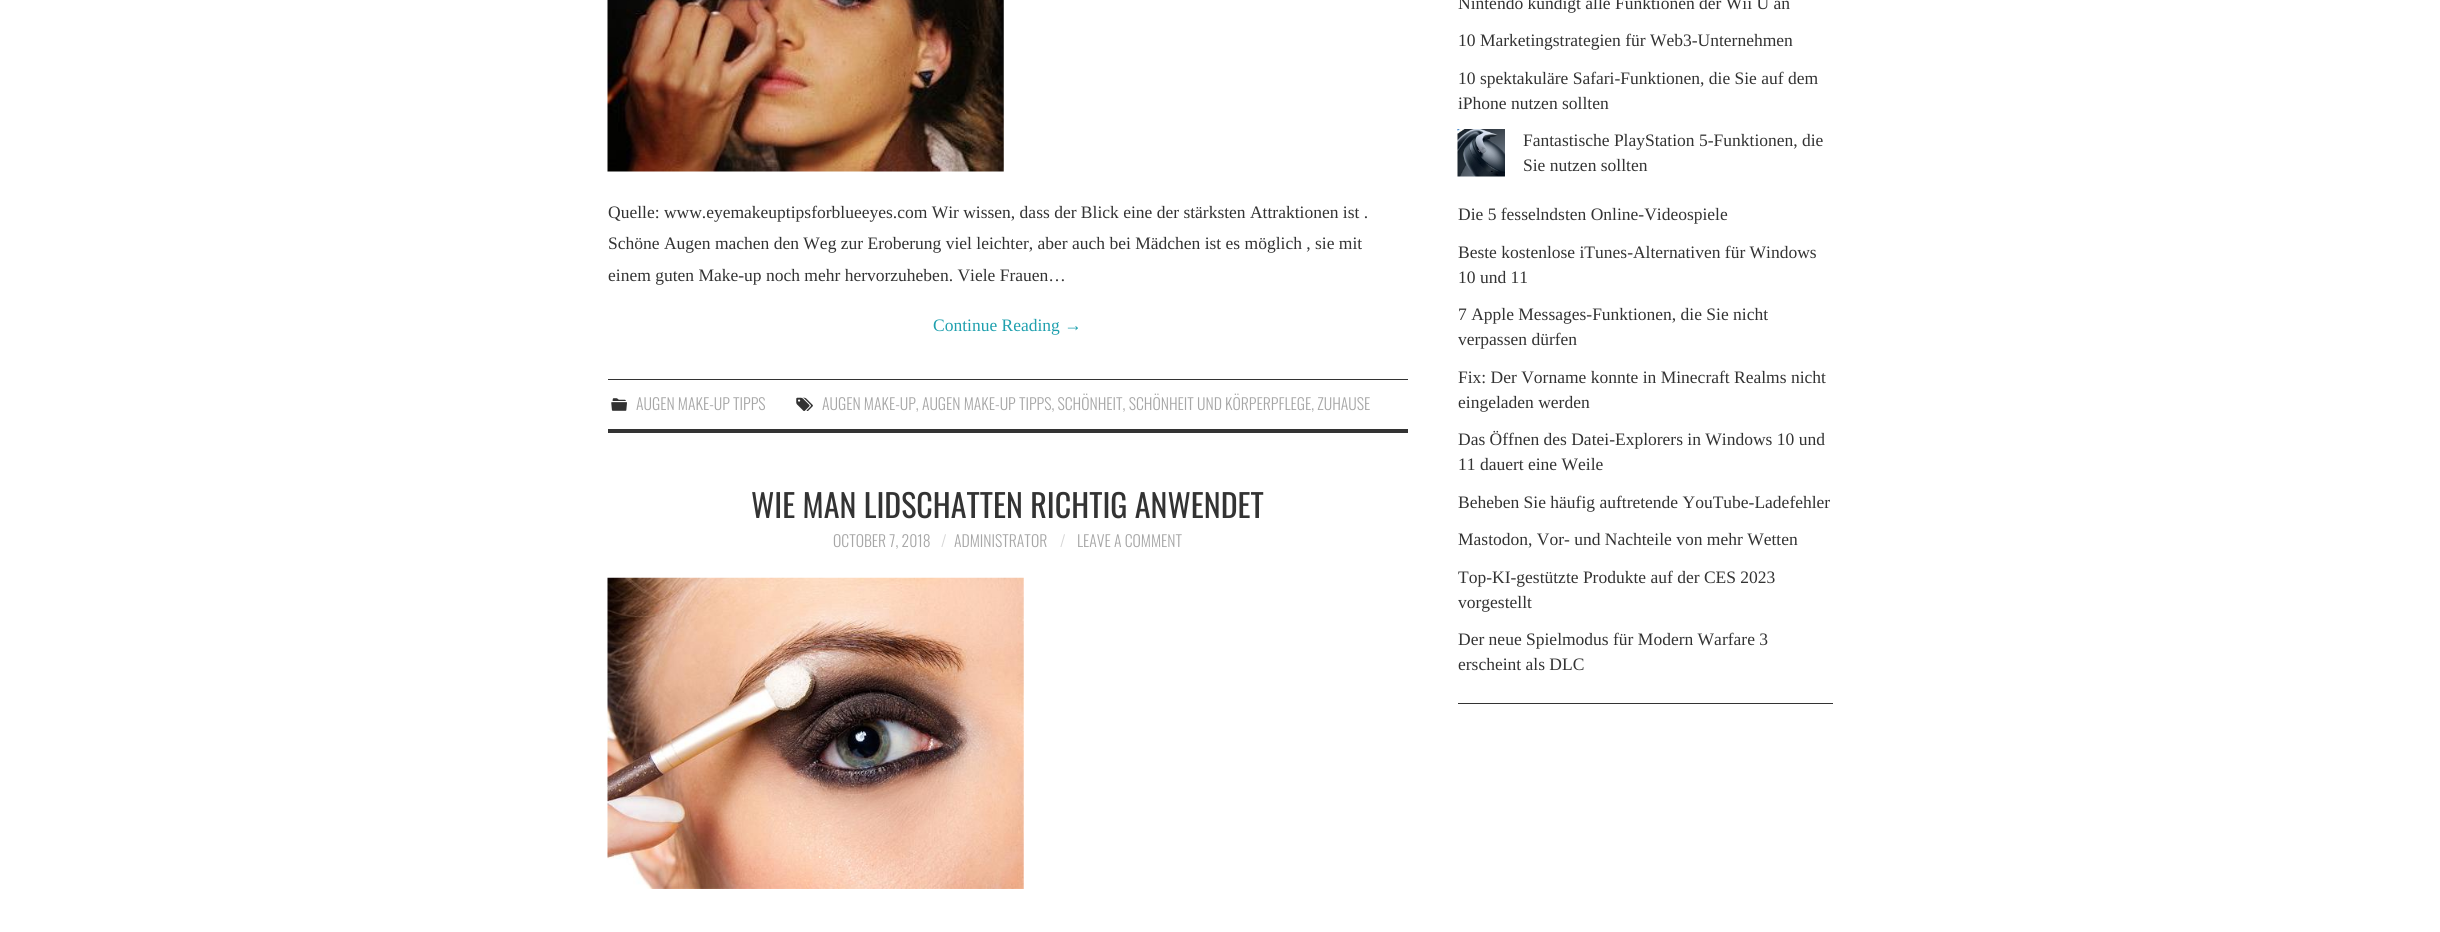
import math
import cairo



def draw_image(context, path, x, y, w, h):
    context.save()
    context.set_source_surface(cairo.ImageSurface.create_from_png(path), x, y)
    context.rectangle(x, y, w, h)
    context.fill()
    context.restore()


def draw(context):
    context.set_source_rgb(1, 1, 1)
    context.paint()
    draw_image(context, "images/1.png", 607, 0, 397, 172)
    context.set_source_rgb(51 / 255, 51 / 255, 51 / 255)
    context.rectangle(608, 379, 800, 1)
    context.fill()
    context.rectangle(608, 429, 800, 4)
    context.fill()
    draw_image(context, "images/2.png", 611, 398, 16, 13)
    draw_image(context, "images/3.png", 796, 397, 17, 14)
    draw_image(context, "images/4.png", 607, 577, 417, 312)
    context.rectangle(1458, 703, 375, 1)
    context.fill()
    draw_image(context, "images/5.png", 1457, 129, 48, 48)
    context.select_font_face("Liberation Serif")
    context.set_font_size(17.5)
    context.move_to(608, 218)
    context.show_text("Quelle: www.eyemakeuptipsforblueeyes.com Wir wissen, dass der Blick eine der stärksten Attraktionen ist .")
    context.move_to(608, 249)
    context.show_text("Schöne Augen machen den Weg zur Eroberung viel leichter, aber auch bei Mädchen ist es möglich , sie mit")
    context.move_to(608, 281)
    context.show_text("einem guten Make-up noch mehr hervorzuheben. Viele Frauen…")
    context.set_source_rgb(31 / 255, 160 / 255, 174 / 255)
    context.move_to(933, 331)
    context.show_text("Continue Reading →")
    context.select_font_face("Oswald Light")
    context.set_font_size(15.75)
    context.set_source_rgb(166 / 255, 166 / 255, 166 / 255)
    context.move_to(636, 410)
    context.show_text("AUGEN MAKE-UP TIPPS")
    context.move_to(822, 410)
    context.show_text("AUGEN MAKE-UP, AUGEN MAKE-UP TIPPS, SCHÖNHEIT, SCHÖNHEIT UND KÖRPERPFLEGE, ZUHAUSE")
    context.select_font_face("Oswald")
    context.set_font_size(32)
    context.set_source_rgb(51 / 255, 51 / 255, 51 / 255)
    context.move_to(751, 518)
    context.show_text("WIE MAN LIDSCHATTEN RICHTIG ANWENDET")
    context.select_font_face("Oswald Light")
    context.set_font_size(15.75)
    context.set_source_rgb(166 / 255, 166 / 255, 166 / 255)
    context.move_to(833, 547)
    context.show_text("OCTOBER 7, 2018")
    context.set_source_rgb(214 / 255, 214 / 255, 214 / 255)
    context.move_to(941, 547)
    context.show_text("/")
    context.set_source_rgb(166 / 255, 166 / 255, 166 / 255)
    context.move_to(954, 547)
    context.show_text("ADMINISTRATOR")
    context.set_source_rgb(214 / 255, 214 / 255, 214 / 255)
    context.move_to(1060, 547)
    context.show_text("/")
    context.set_source_rgb(166 / 255, 166 / 255, 166 / 255)
    context.move_to(1077, 547)
    context.show_text("LEAVE A COMMENT")
    context.select_font_face("Liberation Serif")
    context.set_font_size(17.5)
    context.set_source_rgb(51 / 255, 51 / 255, 51 / 255)
    context.move_to(1458, 9)
    context.show_text("Nintendo kündigt alle Funktionen der Wii U an")
    context.move_to(1458, 46)
    context.show_text("10 Marketingstrategien für Web3-Unternehmen")
    context.move_to(1458, 84)
    context.show_text("10 spektakuläre Safari-Funktionen, die Sie auf dem")
    context.move_to(1458, 109)
    context.show_text("iPhone nutzen sollten")
    context.move_to(1523, 146)
    context.show_text("Fantastische PlayStation 5-Funktionen, die")
    context.move_to(1523, 171)
    context.show_text("Sie nutzen sollten")
    context.move_to(1458, 220)
    context.show_text("Die 5 fesselndsten Online-Videospiele")
    context.move_to(1458, 258)
    context.show_text("Beste kostenlose iTunes-Alternativen für Windows")
    context.move_to(1458, 283)
    context.show_text("10 und 11")
    context.move_to(1458, 320)
    context.show_text("7 Apple Messages-Funktionen, die Sie nicht")
    context.move_to(1458, 345)
    context.show_text("verpassen dürfen")
    context.move_to(1458, 383)
    context.show_text("Fix: Der Vorname konnte in Minecraft Realms nicht")
    context.move_to(1458, 408)
    context.show_text("eingeladen werden")
    context.move_to(1458, 445)
    context.show_text("Das Öffnen des Datei-Explorers in Windows 10 und")
    context.move_to(1458, 470)
    context.show_text("11 dauert eine Weile")
    context.move_to(1458, 508)
    context.show_text("Beheben Sie häufig auftretende YouTube-Ladefehler")
    context.move_to(1458, 545)
    context.show_text("Mastodon, Vor- und Nachteile von mehr Wetten")
    context.move_to(1458, 583)
    context.show_text("Top-KI-gestützte Produkte auf der CES 2023")
    context.move_to(1458, 608)
    context.show_text("vorgestellt")
    context.move_to(1458, 645)
    context.show_text("Der neue Spielmodus für Modern Warfare 3")
    context.move_to(1458, 670)
    context.show_text("erscheint als DLC")


surface = cairo.ImageSurface(cairo.Format.RGB24, 2440, 932)
context = cairo.Context(surface)
options = cairo.FontOptions()
options.set_hint_metrics(cairo.HintMetrics.OFF)
options.set_hint_style(cairo.HintStyle.NONE)
context.set_font_options(options)
context.set_miter_limit(4)
draw(context)
surface.write_to_png("out.png")
